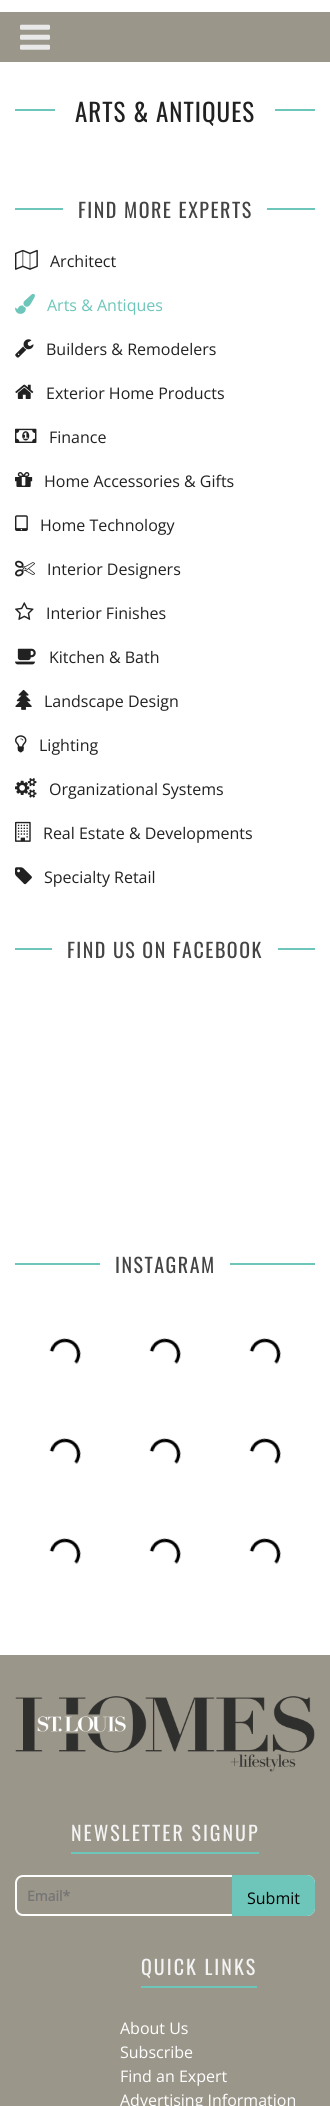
import math
import cairo



def draw_spaced(context, x, y, s, letter, word):
    context.move_to(x, y)
    for ch in s:
        context.show_text(ch)
        context.rel_move_to(letter + word * (ch == ' '), 0)


def rounded_rect(context, x, y, w, h, r):
    context.new_sub_path()
    for i, (u, v) in enumerate([(x + w - r, y + h - r), (x + r, y + h - r), (x + r, y + r), (x + w - r, y + r)]):
        context.arc(u, v, r, i * math.pi / 2, (i + 1) * math.pi / 2)
    context.close_path()


def draw_image(context, path, x, y, w, h):
    context.save()
    context.set_source_surface(cairo.ImageSurface.create_from_png(path), x, y)
    context.rectangle(x, y, w, h)
    context.fill()
    context.restore()


def draw(context):
    context.set_source_rgb(1, 1, 1)
    context.paint()
    context.set_source_rgb(155 / 255, 150 / 255, 138 / 255)
    context.rectangle(0, 12, 330, 50)
    context.fill()
    draw_image(context, "images/1.png", 20, 24, 30, 26)
    context.set_source_rgb(109 / 255, 198 / 255, 185 / 255)
    context.rectangle(15, 109, 300, 2)
    context.fill()
    context.set_source_rgb(1, 1, 1)
    context.rectangle(55, 109, 220, 2)
    context.fill()
    context.set_source_rgb(109 / 255, 198 / 255, 185 / 255)
    context.rectangle(15, 208, 300, 2)
    context.fill()
    context.set_source_rgb(1, 1, 1)
    context.rectangle(63, 208, 204, 2)
    context.fill()
    draw_image(context, "images/2.png", 15, 249, 23, 21)
    draw_image(context, "images/3.png", 15, 293, 20, 21)
    draw_image(context, "images/4.png", 15, 339, 19, 19)
    draw_image(context, "images/5.png", 15, 384, 19, 15)
    draw_image(context, "images/6.png", 15, 428, 22, 15)
    draw_image(context, "images/7.png", 15, 472, 18, 15)
    draw_image(context, "images/8.png", 15, 515, 13, 16)
    draw_image(context, "images/9.png", 15, 560, 20, 17)
    draw_image(context, "images/10.png", 15, 602, 19, 18)
    draw_image(context, "images/11.png", 15, 648, 21, 17)
    draw_image(context, "images/12.png", 15, 689, 17, 21)
    draw_image(context, "images/13.png", 15, 735, 12, 18)
    draw_image(context, "images/14.png", 15, 778, 22, 20)
    draw_image(context, "images/15.png", 15, 821, 16, 21)
    draw_image(context, "images/16.png", 15, 867, 17, 18)
    context.set_source_rgb(109 / 255, 198 / 255, 185 / 255)
    context.rectangle(15, 948, 300, 2)
    context.fill()
    context.set_source_rgb(1, 1, 1)
    context.rectangle(52, 948, 226, 2)
    context.fill()
    context.set_source_rgb(109 / 255, 198 / 255, 185 / 255)
    context.rectangle(15, 1263, 300, 2)
    context.fill()
    context.set_source_rgb(1, 1, 1)
    context.rectangle(100, 1263, 130, 2)
    context.fill()
    draw_image(context, "images/17.png", 49, 1338, 232, 226)
    context.set_source_rgb(155 / 255, 150 / 255, 138 / 255)
    context.rectangle(0, 1655, 330, 451)
    context.fill()
    draw_image(context, "images/18.png", 15, 1696, 300, 76)
    context.set_source_rgb(109 / 255, 198 / 255, 185 / 255)
    context.rectangle(71, 1852, 188, 2)
    context.fill()
    rounded_rect(context, 16, 1876, 298, 39, 7)
    context.set_source_rgb(1, 1, 1)
    context.stroke()
    context.set_source_rgb(109 / 255, 198 / 255, 185 / 255)
    context.new_path()
    context.move_to(232, 1875)
    context.line_to(307, 1875)
    context.curve_to(311.5, 1875, 315, 1878.5, 315, 1883)
    context.line_to(315, 1908)
    context.curve_to(315, 1912.5, 311.5, 1916, 307, 1916)
    context.line_to(232, 1916)
    context.close_path()
    context.fill()
    context.rectangle(141, 1986, 116, 2)
    context.fill()
    context.select_font_face("Oswald")
    context.set_font_size(25)
    context.set_source_rgb(33 / 255, 33 / 255, 33 / 255)
    draw_spaced(context, 75, 122, "ARTS & ANTIQUES", 1, 0)
    context.set_font_size(20)
    context.set_source_rgb(68 / 255, 68 / 255, 68 / 255)
    draw_spaced(context, 78, 218, "FIND MORE EXPERTS", 1.5, 0)
    context.select_font_face("Open Sans")
    context.set_font_size(16)
    context.set_source_rgb(33 / 255, 33 / 255, 33 / 255)
    context.move_to(50, 267)
    context.show_text("Architect")
    context.set_source_rgb(109 / 255, 198 / 255, 185 / 255)
    context.move_to(47, 311)
    context.show_text("Arts & Antiques")
    context.set_source_rgb(33 / 255, 33 / 255, 33 / 255)
    context.move_to(46, 355)
    context.show_text("Builders & Remodelers")
    context.move_to(46, 399)
    context.show_text("Exterior Home Products")
    context.move_to(49, 443)
    context.show_text("Finance")
    context.move_to(44, 487)
    context.show_text("Home Accessories & Gifts")
    context.move_to(40, 531)
    context.show_text("Home Technology")
    context.move_to(47, 575)
    context.show_text("Interior Designers")
    context.move_to(46, 619)
    context.show_text("Interior Finishes")
    context.move_to(49, 663)
    context.show_text("Kitchen & Bath")
    context.move_to(44, 707)
    context.show_text("Landscape Design")
    context.move_to(39, 751)
    context.show_text("Lighting")
    context.move_to(49, 795)
    context.show_text("Organizational Systems")
    context.move_to(43, 839)
    context.show_text("Real Estate & Developments")
    context.move_to(44, 883)
    context.show_text("Specialty Retail")
    context.select_font_face("Oswald")
    context.set_font_size(20)
    context.set_source_rgb(68 / 255, 68 / 255, 68 / 255)
    draw_spaced(context, 67, 958, "FIND US ON FACEBOOK", 1.5, 0)
    draw_spaced(context, 115, 1273, "INSTAGRAM", 1.5, 0)
    context.set_source_rgb(243 / 255, 243 / 255, 243 / 255)
    draw_spaced(context, 71, 1841, "NEWSLETTER SIGNUP", 2, 0)
    context.select_font_face("Open Sans", cairo.FontSlant.NORMAL, cairo.FontWeight.BOLD)
    context.set_font_size(14)
    context.set_source_rgb(117 / 255, 117 / 255, 117 / 255)
    context.move_to(27, 1901)
    context.show_text("Email*")
    context.select_font_face("Open Sans")
    context.set_font_size(16)
    context.set_source_rgb(0, 0, 0)
    context.move_to(247, 1904)
    context.show_text("Submit")
    context.select_font_face("Oswald")
    context.set_font_size(20)
    context.set_source_rgb(243 / 255, 243 / 255, 243 / 255)
    draw_spaced(context, 141, 1975, "QUICK LINKS", 2, 0)
    context.select_font_face("Open Sans")
    context.set_font_size(16)
    context.set_source_rgb(1, 1, 1)
    context.move_to(120, 2034)
    context.show_text("About Us")
    context.move_to(120, 2058)
    context.show_text("Subscribe")
    context.move_to(120, 2082)
    context.show_text("Find an Expert")
    context.move_to(120, 2106)
    context.show_text("Advertising Information")


surface = cairo.ImageSurface(cairo.Format.RGB24, 330, 2106)
context = cairo.Context(surface)
options = cairo.FontOptions()
options.set_hint_metrics(cairo.HintMetrics.OFF)
options.set_hint_style(cairo.HintStyle.NONE)
context.set_font_options(options)
context.set_miter_limit(4)
draw(context)
surface.write_to_png("out.png")
